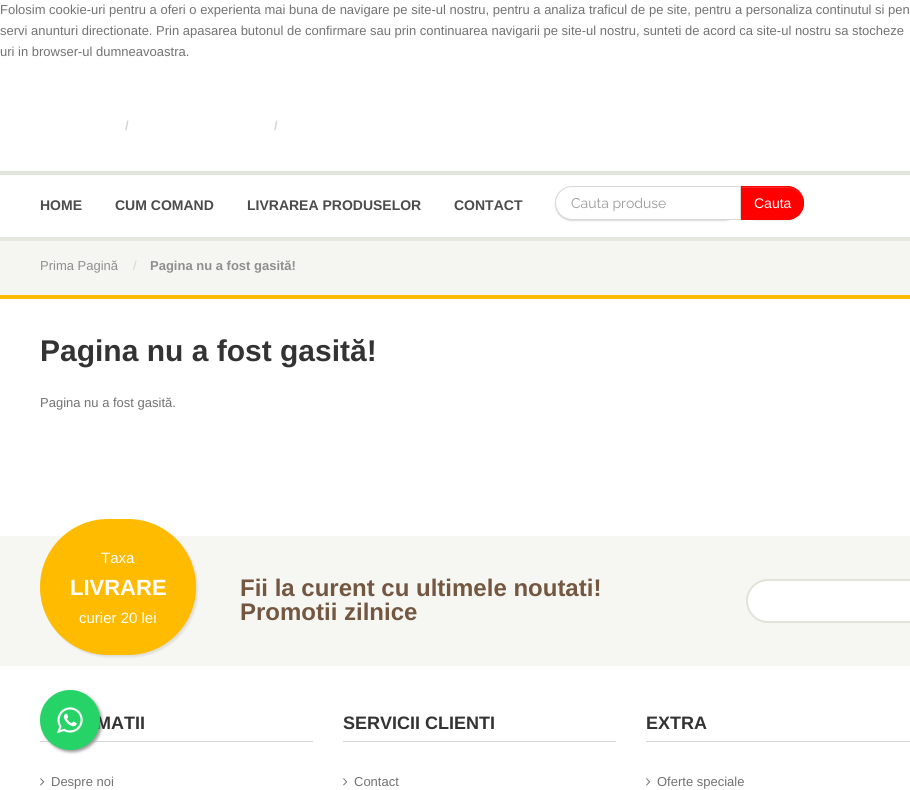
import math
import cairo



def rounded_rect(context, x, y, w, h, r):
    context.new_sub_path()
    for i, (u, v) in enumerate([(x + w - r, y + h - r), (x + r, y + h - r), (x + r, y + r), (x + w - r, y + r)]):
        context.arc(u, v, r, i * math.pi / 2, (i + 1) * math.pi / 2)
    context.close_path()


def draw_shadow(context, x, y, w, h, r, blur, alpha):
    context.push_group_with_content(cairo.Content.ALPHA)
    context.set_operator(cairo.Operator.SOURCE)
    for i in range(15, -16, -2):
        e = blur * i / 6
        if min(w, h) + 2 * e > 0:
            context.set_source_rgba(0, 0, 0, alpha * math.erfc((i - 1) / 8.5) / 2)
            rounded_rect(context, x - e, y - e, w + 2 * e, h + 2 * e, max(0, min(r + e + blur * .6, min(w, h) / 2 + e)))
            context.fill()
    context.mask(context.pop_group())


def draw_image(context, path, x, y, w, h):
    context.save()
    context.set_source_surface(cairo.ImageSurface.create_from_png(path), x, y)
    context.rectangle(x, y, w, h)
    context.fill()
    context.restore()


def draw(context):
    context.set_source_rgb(1, 1, 1)
    context.paint()
    context.set_source_rgb(225 / 255, 228 / 255, 217 / 255)
    context.rectangle(0, 171, 910, 4)
    context.fill()
    context.set_source_rgb(229 / 255, 232 / 255, 223 / 255)
    context.rectangle(0, 237, 910, 4)
    context.fill()
    context.set_source_rgb(221 / 255, 221 / 255, 221 / 255)
    draw_shadow(context, 555, 187, 186, 34, 17, 0.5, 1)
    context.set_source_rgb(1, 1, 1)
    context.new_path()
    context.move_to(572, 186.5)
    context.line_to(740.5, 186.5)
    context.line_to(740.5, 219.5)
    context.line_to(572, 219.5)
    context.curve_to(563, 219.5, 555.5, 212, 555.5, 203)
    context.curve_to(555.5, 194, 563, 186.5, 572, 186.5)
    context.close_path()
    context.fill_preserve()
    context.set_source_rgb(215 / 255, 215 / 255, 215 / 255)
    context.set_line_width(1)
    context.stroke()
    context.set_source_rgb(0, 0, 0)
    draw_shadow(context, 741, 187, 63, 34, 17, 0.5, 0.07)
    context.set_source_rgb(1, 0, 0)
    context.new_path()
    context.move_to(741, 186)
    context.line_to(787, 186)
    context.curve_to(796.5, 186, 804, 193.5, 804, 203)
    context.curve_to(804, 212.5, 796.5, 220, 787, 220)
    context.line_to(741, 220)
    context.close_path()
    context.fill()
    context.set_source_rgb(1, 38 / 255, 38 / 255)
    context.new_path()
    context.move_to(742, 188)
    context.line_to(787, 188)
    context.curve_to(796, 188, 803, 195, 803, 203)
    context.curve_to(803, 194, 796, 187, 787, 187)
    context.line_to(742, 187)
    context.close_path()
    context.fill()
    context.new_path()
    context.move_to(741.5, 186.5)
    context.line_to(787, 186.5)
    context.curve_to(796, 186.5, 803.5, 194, 803.5, 203)
    context.curve_to(803.5, 212, 796, 219.5, 787, 219.5)
    context.line_to(741.5, 219.5)
    context.close_path()
    context.set_source_rgb(1, 0, 0)
    context.stroke()
    context.set_source_rgb(245 / 255, 246 / 255, 241 / 255)
    context.rectangle(0, 241, 910, 54)
    context.fill()
    context.set_source_rgb(1, 187 / 255, 0)
    context.rectangle(0, 295, 910, 4)
    context.fill()
    context.set_source_rgb(246 / 255, 246 / 255, 242 / 255)
    context.rectangle(0, 536, 910, 130)
    context.fill()
    context.set_source_rgb(0, 0, 0)
    draw_shadow(context, 42, 521, 156, 136, 68, 1, 0.1)
    context.set_source_rgb(1, 187 / 255, 0)
    rounded_rect(context, 40, 519, 156, 136, 68)
    context.fill()
    context.set_source_rgb(1, 1, 1)
    rounded_rect(context, 747, 580, 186, 42, 21)
    context.fill_preserve()
    context.set_source_rgb(225 / 255, 227 / 255, 216 / 255)
    context.set_line_width(2)
    context.stroke()
    context.set_source_rgb(214 / 255, 214 / 255, 214 / 255)
    context.rectangle(40, 741, 273, 1)
    context.fill()
    draw_image(context, "images/1.png", 40, 778, 5, 8)
    context.rectangle(343, 741, 273, 1)
    context.fill()
    draw_image(context, "images/1.png", 343, 778, 5, 8)
    context.rectangle(646, 741, 264, 1)
    context.fill()
    draw_image(context, "images/1.png", 646, 778, 5, 8)
    context.set_source_rgb(153 / 255, 153 / 255, 153 / 255)
    draw_shadow(context, 42, 692, 60, 60, 30, 1.5, 1)
    context.select_font_face("Liberation Sans")
    context.set_font_size(13)
    context.set_source_rgb(114 / 255, 114 / 255, 114 / 255)
    context.move_to(0, 14)
    context.show_text("Folosim cookie-uri pentru a oferi o experienta mai buna de navigare pe site-ul nostru, pentru a analiza traficul de pe site, pentru a personaliza continutul si pen")
    context.move_to(0, 35)
    context.show_text("servi anunturi directionate. Prin apasarea butonul de confirmare sau prin continuarea navigarii pe site-ul nostru, sunteti de acord ca site-ul nostru sa stocheze")
    context.move_to(0, 56)
    context.show_text("uri in browser-ul dumneavoastra.")
    context.select_font_face("Liberation Sans", cairo.FontSlant.NORMAL, cairo.FontWeight.BOLD)
    context.set_source_rgb(213 / 255, 213 / 255, 213 / 255)
    context.move_to(125, 130)
    context.show_text("/")
    context.move_to(274, 130)
    context.show_text("/")
    context.set_font_size(14)
    context.set_source_rgb(75 / 255, 75 / 255, 75 / 255)
    context.move_to(40, 210)
    context.show_text("HOME")
    context.move_to(115, 210)
    context.show_text("CUM COMAND")
    context.move_to(247, 210)
    context.show_text("LIVRAREA PRODUSELOR")
    context.move_to(454, 210)
    context.show_text("CONTACT")
    context.select_font_face("Raleway")
    context.set_source_rgb(153 / 255, 153 / 255, 153 / 255)
    context.move_to(571, 208)
    context.show_text("Cauta produse")
    context.select_font_face("Liberation Sans")
    context.set_source_rgb(1, 1, 1)
    context.move_to(754, 208)
    context.show_text("Cauta")
    context.set_font_size(13)
    context.set_source_rgb(143 / 255, 143 / 255, 143 / 255)
    context.move_to(40, 270)
    context.show_text("Prima Pagină")
    context.set_source_rgb(213 / 255, 213 / 255, 213 / 255)
    context.move_to(133, 270)
    context.show_text("/")
    context.select_font_face("Liberation Sans", cairo.FontSlant.NORMAL, cairo.FontWeight.BOLD)
    context.set_source_rgb(143 / 255, 143 / 255, 143 / 255)
    context.move_to(150, 270)
    context.show_text("Pagina nu a fost gasită!")
    context.set_font_size(30)
    context.set_source_rgb(51 / 255, 51 / 255, 51 / 255)
    context.move_to(40, 361)
    context.show_text("Pagina nu a fost gasită!")
    context.select_font_face("Liberation Sans")
    context.set_font_size(13)
    context.set_source_rgb(114 / 255, 114 / 255, 114 / 255)
    context.move_to(40, 407)
    context.show_text("Pagina nu a fost gasită.")
    context.set_font_size(15)
    context.set_source_rgb(1, 1, 1)
    context.move_to(101, 563)
    context.show_text("Taxa")
    context.select_font_face("Liberation Sans", cairo.FontSlant.NORMAL, cairo.FontWeight.BOLD)
    context.set_font_size(22)
    context.move_to(70, 595)
    context.show_text("LIVRARE")
    context.select_font_face("Liberation Sans")
    context.set_font_size(15)
    context.move_to(79, 623)
    context.show_text("curier 20 lei")
    context.select_font_face("Liberation Sans", cairo.FontSlant.NORMAL, cairo.FontWeight.BOLD)
    context.set_font_size(24)
    context.set_source_rgb(115 / 255, 87 / 255, 65 / 255)
    context.move_to(240, 596)
    context.show_text("Fii la curent cu ultimele noutati!")
    context.move_to(240, 620)
    context.show_text("Promotii zilnice")
    context.set_font_size(18)
    context.set_source_rgb(51 / 255, 51 / 255, 51 / 255)
    context.move_to(96, 729)
    context.show_text("MATII")
    context.select_font_face("Liberation Sans")
    context.set_font_size(13)
    context.set_source_rgb(114 / 255, 114 / 255, 114 / 255)
    context.move_to(51, 786)
    context.show_text("Despre noi")
    context.select_font_face("Liberation Sans", cairo.FontSlant.NORMAL, cairo.FontWeight.BOLD)
    context.set_font_size(18)
    context.set_source_rgb(51 / 255, 51 / 255, 51 / 255)
    context.move_to(343, 729)
    context.show_text("SERVICII CLIENTI")
    context.select_font_face("Liberation Sans")
    context.set_font_size(13)
    context.set_source_rgb(114 / 255, 114 / 255, 114 / 255)
    context.move_to(354, 786)
    context.show_text("Contact")
    context.select_font_face("Liberation Sans", cairo.FontSlant.NORMAL, cairo.FontWeight.BOLD)
    context.set_font_size(18)
    context.set_source_rgb(51 / 255, 51 / 255, 51 / 255)
    context.move_to(646, 729)
    context.show_text("EXTRA")
    context.select_font_face("Liberation Sans")
    context.set_font_size(13)
    context.set_source_rgb(114 / 255, 114 / 255, 114 / 255)
    context.move_to(657, 786)
    context.show_text("Oferte speciale")
    context.set_source_rgb(37 / 255, 211 / 255, 102 / 255)
    context.new_path()
    context.arc(70, 720, 30, 0, 2 * math.pi)
    context.fill()
    draw_image(context, "images/2.png", 57, 707, 26, 27)


surface = cairo.ImageSurface(cairo.Format.RGB24, 910, 790)
context = cairo.Context(surface)
options = cairo.FontOptions()
options.set_hint_metrics(cairo.HintMetrics.OFF)
options.set_hint_style(cairo.HintStyle.NONE)
context.set_font_options(options)
context.set_miter_limit(4)
draw(context)
surface.write_to_png("out.png")
